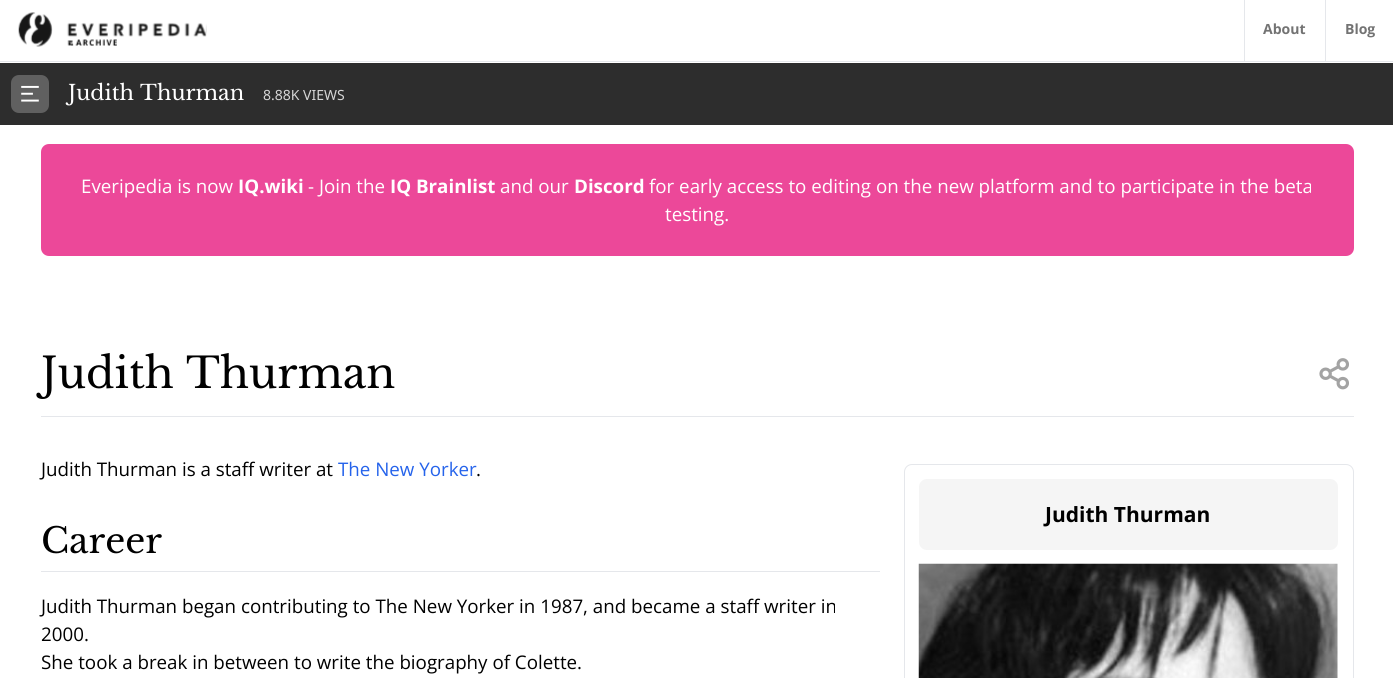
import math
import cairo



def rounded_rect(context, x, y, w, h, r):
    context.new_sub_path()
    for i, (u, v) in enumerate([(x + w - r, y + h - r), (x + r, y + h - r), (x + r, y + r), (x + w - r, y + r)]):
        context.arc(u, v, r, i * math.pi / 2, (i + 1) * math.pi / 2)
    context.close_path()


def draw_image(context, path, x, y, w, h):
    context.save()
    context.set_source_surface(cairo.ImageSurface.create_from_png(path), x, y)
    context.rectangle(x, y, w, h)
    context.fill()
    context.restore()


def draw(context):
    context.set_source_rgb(1, 1, 1)
    context.paint()
    context.set_source_rgb(229 / 255, 231 / 255, 235 / 255)
    context.rectangle(0, 61, 1393, 1)
    context.fill()
    draw_image(context, "images/1.png", 18, 12, 189, 35)
    context.rectangle(1244, 0, 1, 61)
    context.fill()
    context.rectangle(1325, 0, 1, 61)
    context.fill()
    context.set_source_rgb(45 / 255, 45 / 255, 45 / 255)
    context.rectangle(0, 63, 1393, 62)
    context.fill()
    context.set_source_rgb(96 / 255, 96 / 255, 96 / 255)
    rounded_rect(context, 11, 75, 38, 38, 8)
    context.fill()
    draw_image(context, "images/2.png", 21, 85, 18, 17)
    context.set_source_rgb(236 / 255, 72 / 255, 153 / 255)
    rounded_rect(context, 41, 144, 1313, 112, 8)
    context.fill()
    context.set_source_rgb(229 / 255, 231 / 255, 235 / 255)
    context.rectangle(41, 416, 1313, 1)
    context.fill()
    draw_image(context, "images/3.png", 1319, 358, 30, 32)
    context.rectangle(41, 571, 839, 1)
    context.fill()
    rounded_rect(context, 904.5, 464.5, 449, 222, 7.5)
    context.set_line_width(1)
    context.stroke()
    context.set_source_rgb(245 / 255, 245 / 255, 245 / 255)
    rounded_rect(context, 919, 479, 419, 71, 8)
    context.fill()
    draw_image(context, "images/4.png", 918, 563, 420, 115)
    context.select_font_face("Open Sans", cairo.FontSlant.NORMAL, cairo.FontWeight.BOLD)
    context.set_font_size(14)
    context.set_source_rgb(115 / 255, 115 / 255, 115 / 255)
    context.move_to(1263, 34)
    context.show_text("About")
    context.move_to(1345, 34)
    context.show_text("Blog")
    context.select_font_face("Libre Baskerville")
    context.set_font_size(21)
    context.set_source_rgb(1, 1, 1)
    context.move_to(68, 100)
    context.show_text("Judith Thurman")
    context.select_font_face("Noto Sans")
    context.set_font_size(14)
    context.set_source_rgb(213 / 255, 213 / 255, 213 / 255)
    context.move_to(263, 100)
    context.show_text("8.88K VIEWS")
    context.select_font_face("Open Sans")
    context.set_font_size(18.75)
    context.set_source_rgb(1, 1, 1)
    context.move_to(81, 193)
    context.show_text("Everipedia is now")
    context.select_font_face("Open Sans", cairo.FontSlant.NORMAL, cairo.FontWeight.BOLD)
    context.move_to(238, 193)
    context.show_text("IQ.wiki")
    context.select_font_face("Open Sans")
    context.move_to(308, 193)
    context.show_text("- Join the")
    context.select_font_face("Open Sans", cairo.FontSlant.NORMAL, cairo.FontWeight.BOLD)
    context.move_to(390, 193)
    context.show_text("IQ Brainlist")
    context.select_font_face("Open Sans")
    context.move_to(500, 193)
    context.show_text("and our")
    context.select_font_face("Open Sans", cairo.FontSlant.NORMAL, cairo.FontWeight.BOLD)
    context.move_to(574, 193)
    context.show_text("Discord")
    context.select_font_face("Open Sans")
    context.move_to(649, 193)
    context.show_text("for early access to editing on the new platform and to participate in the beta")
    context.move_to(665, 221)
    context.show_text("testing.")
    context.select_font_face("Libre Baskerville")
    context.set_font_size(42.25)
    context.set_source_rgb(0, 0, 0)
    context.move_to(41, 388)
    context.show_text("Judith Thurman")
    context.select_font_face("Open Sans")
    context.set_font_size(18.75)
    context.move_to(41, 476)
    context.show_text("Judith Thurman is a staff writer at")
    context.set_source_rgb(37 / 255, 99 / 255, 235 / 255)
    context.move_to(338, 476)
    context.show_text("The New Yorker")
    context.set_source_rgb(0, 0, 0)
    context.move_to(476, 476)
    context.show_text(".")
    context.select_font_face("Libre Baskerville")
    context.set_font_size(35)
    context.move_to(41, 553)
    context.show_text("Career")
    context.select_font_face("Open Sans")
    context.set_font_size(18.75)
    context.move_to(41, 613)
    context.show_text("Judith Thurman began contributing to The New Yorker in 1987, and became a staff writer in")
    context.move_to(41, 641)
    context.show_text("2000.")
    context.move_to(41, 669)
    context.show_text("She took a break in between to write the biography of Colette.")
    context.select_font_face("Open Sans", cairo.FontSlant.NORMAL, cairo.FontWeight.BOLD)
    context.set_font_size(21)
    context.move_to(1045, 522)
    context.show_text("Judith Thurman")


surface = cairo.ImageSurface(cairo.Format.RGB24, 1393, 678)
context = cairo.Context(surface)
options = cairo.FontOptions()
options.set_hint_metrics(cairo.HintMetrics.OFF)
options.set_hint_style(cairo.HintStyle.NONE)
context.set_font_options(options)
context.set_miter_limit(4)
draw(context)
surface.write_to_png("out.png")
